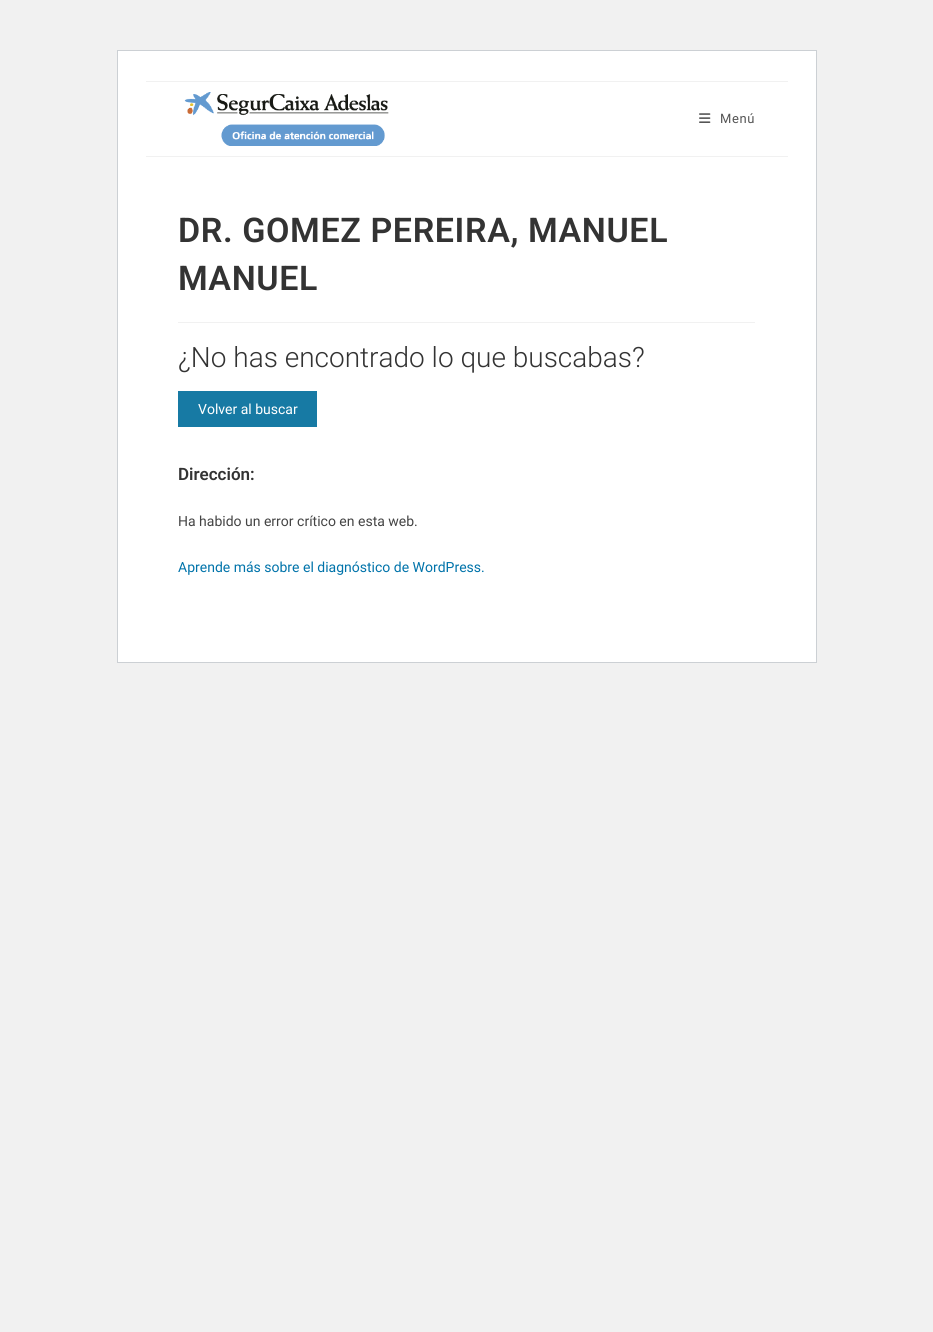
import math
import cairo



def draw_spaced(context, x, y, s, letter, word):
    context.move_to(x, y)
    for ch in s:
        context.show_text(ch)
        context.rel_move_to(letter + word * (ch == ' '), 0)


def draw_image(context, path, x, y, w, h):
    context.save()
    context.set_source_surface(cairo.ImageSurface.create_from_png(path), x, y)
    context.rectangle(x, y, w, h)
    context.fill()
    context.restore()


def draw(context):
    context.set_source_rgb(241 / 255, 241 / 255, 241 / 255)
    context.paint()
    context.set_source_rgb(1, 1, 1)
    context.rectangle(117.5, 50.5, 699, 612)
    context.fill_preserve()
    context.set_source_rgb(204 / 255, 208 / 255, 212 / 255)
    context.set_line_width(1)
    context.stroke()
    context.set_source_rgb(241 / 255, 241 / 255, 241 / 255)
    context.rectangle(146, 81, 642, 1)
    context.fill()
    context.rectangle(146, 156, 642, 1)
    context.fill()
    draw_image(context, "images/1.png", 184, 92, 205, 54)
    draw_image(context, "images/2.png", 699, 113, 12, 10)
    context.rectangle(178, 322, 577, 1)
    context.fill()
    context.set_source_rgb(23 / 255, 122 / 255, 164 / 255)
    context.rectangle(178, 391, 139, 36)
    context.fill()
    context.select_font_face("Roboto")
    context.set_font_size(13)
    context.set_source_rgb(85 / 255, 85 / 255, 85 / 255)
    draw_spaced(context, 720, 123, "Menú", 0.6, 0)
    context.select_font_face("Roboto SemiBold")
    context.set_font_size(34)
    context.set_source_rgb(51 / 255, 51 / 255, 51 / 255)
    draw_spaced(context, 178, 242, "DR. GOMEZ PEREIRA, MANUEL", 0.6, 0)
    draw_spaced(context, 178, 290, "MANUEL", 0.6, 0)
    context.select_font_face("Roboto Light")
    context.set_font_size(28)
    context.move_to(178, 367)
    context.show_text("¿No has encontrado lo que buscabas?")
    context.select_font_face("Roboto")
    context.set_font_size(14)
    context.set_source_rgb(1, 1, 1)
    context.move_to(198, 414)
    context.show_text("Volver al buscar")
    context.select_font_face("Roboto SemiBold")
    context.set_font_size(17)
    context.set_source_rgb(51 / 255, 51 / 255, 51 / 255)
    context.move_to(178, 480)
    context.show_text("Dirección:")
    context.select_font_face("Roboto")
    context.set_font_size(14)
    context.set_source_rgb(68 / 255, 68 / 255, 68 / 255)
    context.move_to(178, 526)
    context.show_text("Ha habido un error crítico en esta web.")
    context.set_source_rgb(0, 115 / 255, 170 / 255)
    context.move_to(178, 572)
    context.show_text("Aprende más sobre el diagnóstico de WordPress.")


surface = cairo.ImageSurface(cairo.Format.RGB24, 933, 1332)
context = cairo.Context(surface)
options = cairo.FontOptions()
options.set_hint_metrics(cairo.HintMetrics.OFF)
options.set_hint_style(cairo.HintStyle.NONE)
context.set_font_options(options)
context.set_miter_limit(4)
draw(context)
surface.write_to_png("out.png")
